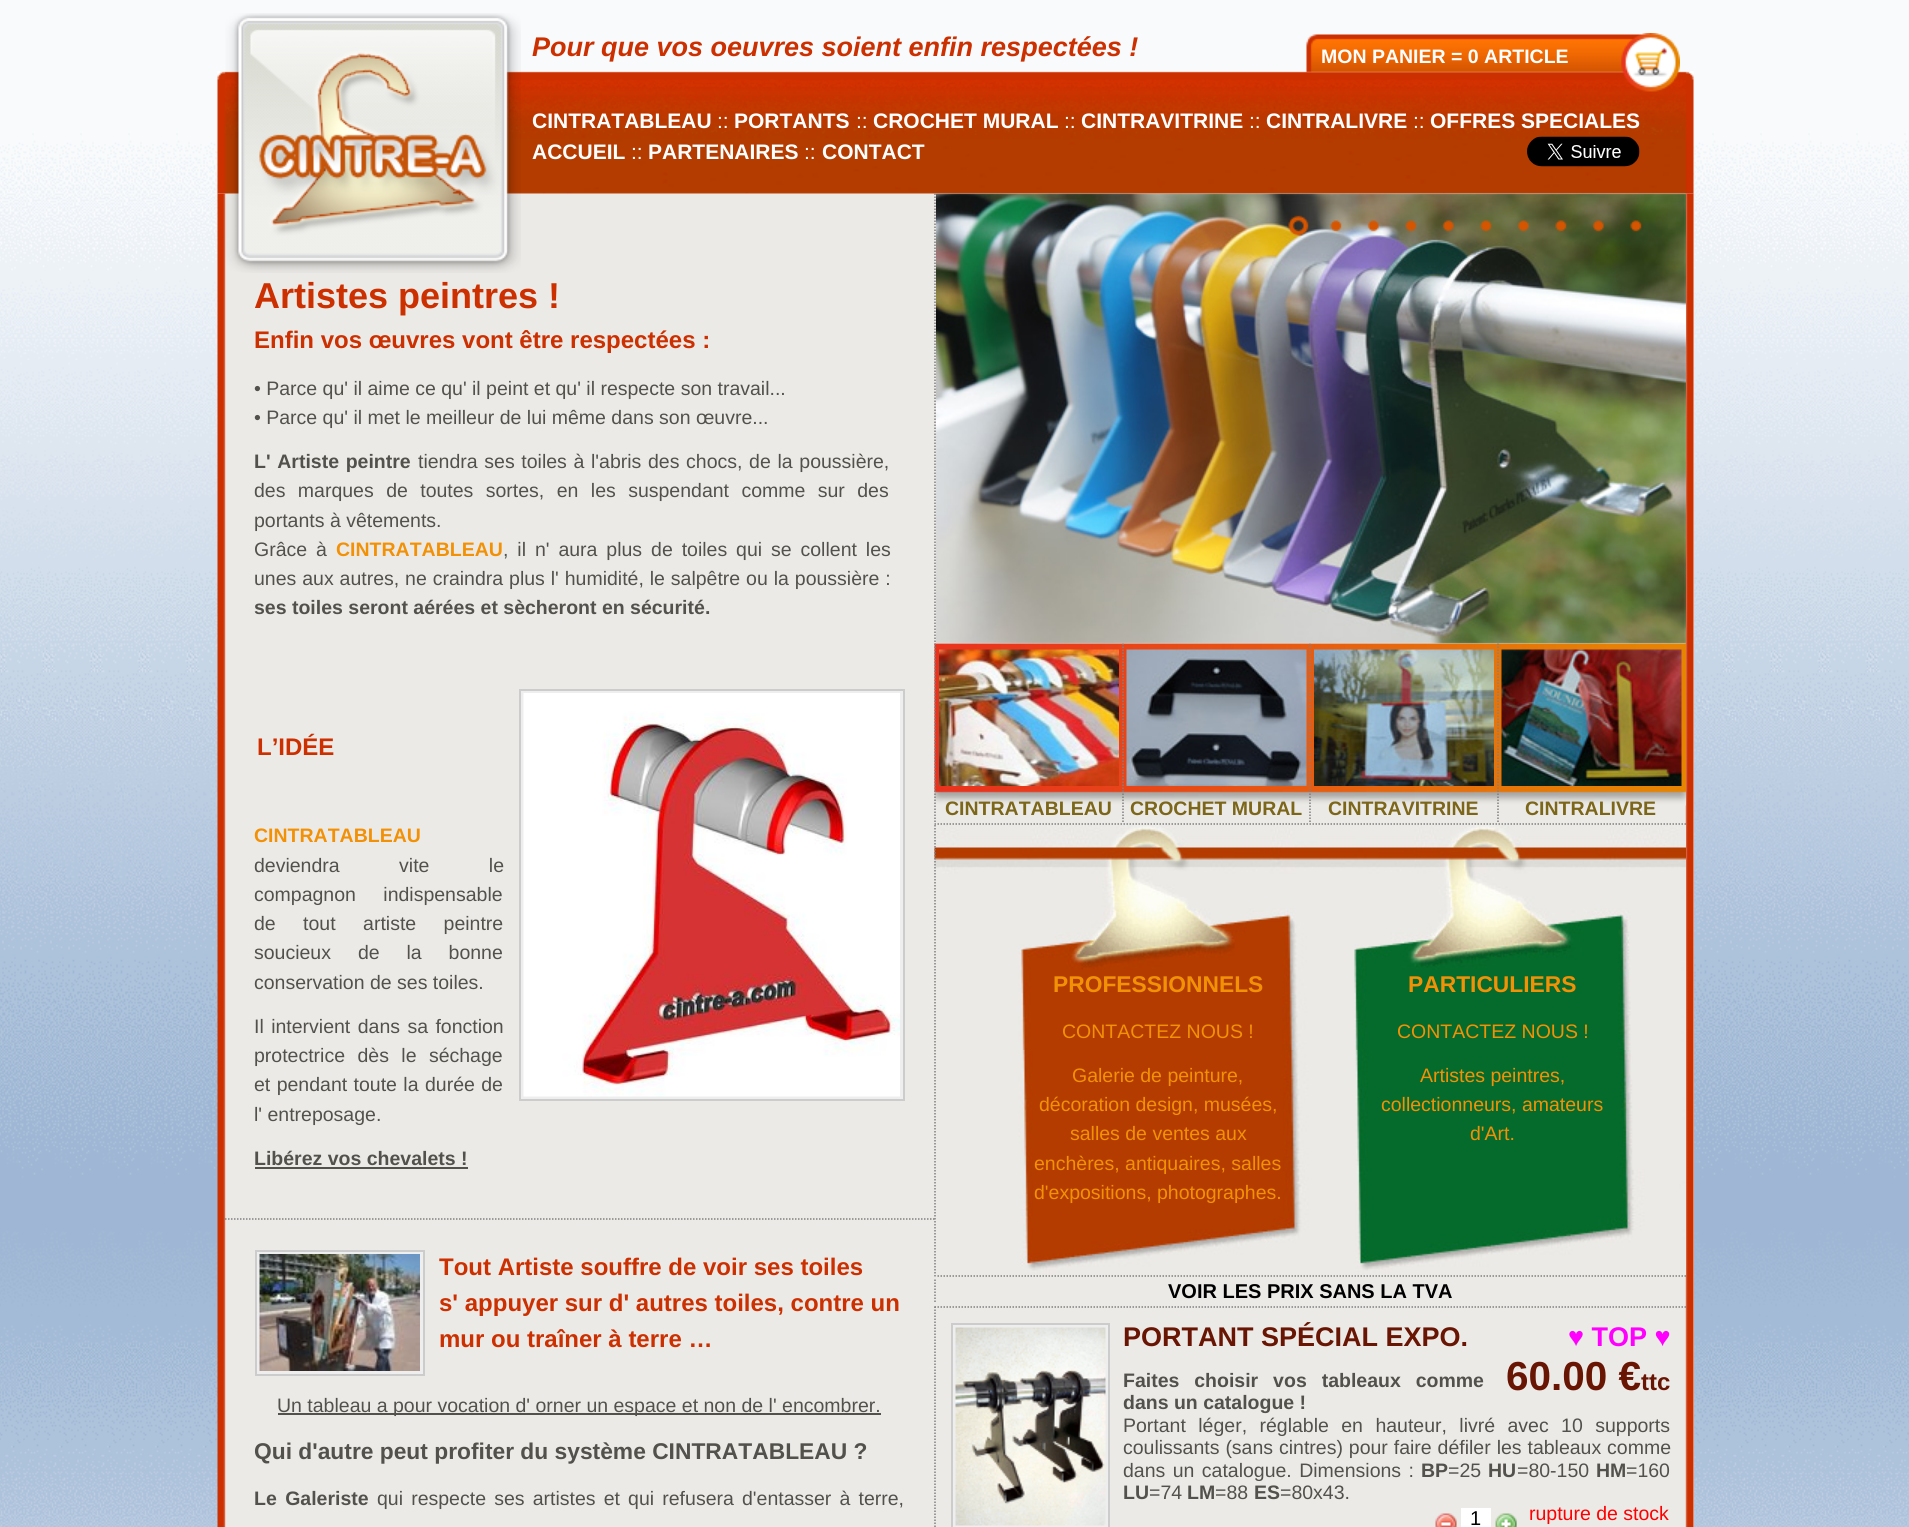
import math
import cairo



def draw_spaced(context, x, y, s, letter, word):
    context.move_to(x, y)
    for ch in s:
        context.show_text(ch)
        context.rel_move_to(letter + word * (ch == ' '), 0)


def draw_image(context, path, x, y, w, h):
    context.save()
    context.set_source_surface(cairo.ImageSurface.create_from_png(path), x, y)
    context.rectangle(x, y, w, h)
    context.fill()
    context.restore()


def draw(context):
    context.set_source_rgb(1, 1, 1)
    context.paint()
    draw_image(context, "images/1.png", 0, 0, 1909, 1527)
    context.set_source_rgb(236 / 255, 234 / 255, 231 / 255)
    context.rectangle(1693, 194, 1, 1333)
    context.fill()
    draw_image(context, "images/6.png", 217, 193, 1477, 1334)
    draw_image(context, "images/2.png", 217, 71, 1477, 123)
    draw_image(context, "images/3.png", 225, 13, 296, 260)
    draw_image(context, "images/4.png", 1306, 33, 374, 59)
    draw_image(context, "images/5.png", 1527, 136, 113, 31)
    context.new_path()
    context.move_to(935, 193.5)
    context.line_to(935, 643.5)
    context.set_source_rgb(128 / 255, 128 / 255, 128 / 255)
    context.set_line_width(1.5)
    context.set_dash([1.5, 1.5])
    context.stroke()
    draw_image(context, "images/20.png", 934, 643, 752, 163)
    context.new_path()
    context.move_to(1123, 643.5)
    context.line_to(1123, 823.5)
    context.stroke()
    context.new_path()
    context.move_to(1310, 643.5)
    context.line_to(1310, 823.5)
    context.stroke()
    context.new_path()
    context.move_to(1498, 643.5)
    context.line_to(1498, 823.5)
    context.stroke()
    draw_image(context, "images/7.png", 936, 193, 750, 451)
    draw_image(context, "images/8.png", 1288, 215, 21, 21)
    draw_image(context, "images/9.png", 1330, 220, 12, 12)
    draw_image(context, "images/10.png", 1367, 220, 12, 12)
    draw_image(context, "images/11.png", 1405, 220, 12, 12)
    draw_image(context, "images/12.png", 1442, 220, 12, 12)
    draw_image(context, "images/13.png", 1480, 220, 12, 12)
    draw_image(context, "images/14.png", 1517, 220, 12, 12)
    draw_image(context, "images/15.png", 1555, 220, 12, 12)
    draw_image(context, "images/16.png", 1592, 220, 12, 12)
    draw_image(context, "images/17.png", 1630, 220, 12, 12)
    context.new_path()
    context.move_to(225, 1219)
    context.line_to(934.5, 1219)
    context.stroke()
    context.set_source_rgb(238 / 255, 238 / 255, 238 / 255)
    context.rectangle(520, 690, 384, 410)
    context.fill_preserve()
    context.set_source_rgb(204 / 255, 204 / 255, 204 / 255)
    context.set_line_width(2)
    context.set_dash([])
    context.stroke()
    draw_image(context, "images/18.png", 523, 693, 377, 404)
    context.set_source_rgb(83 / 255, 81 / 255, 75 / 255)
    context.rectangle(255, 1167, 213, 2)
    context.fill()
    context.set_source_rgb(238 / 255, 238 / 255, 238 / 255)
    context.rectangle(256, 1251, 168, 124)
    context.fill_preserve()
    context.set_source_rgb(204 / 255, 204 / 255, 204 / 255)
    context.stroke()
    draw_image(context, "images/19.png", 259, 1254, 161, 117)
    context.set_source_rgb(83 / 255, 81 / 255, 75 / 255)
    context.rectangle(278, 1413, 603, 2)
    context.fill()
    context.new_path()
    context.move_to(934.5, 824)
    context.line_to(1686, 824)
    context.set_source_rgb(128 / 255, 128 / 255, 128 / 255)
    context.set_line_width(1.5)
    context.set_dash([1.5, 1.5])
    context.stroke()
    context.new_path()
    context.move_to(935, 643.5)
    context.line_to(935, 823.5)
    context.stroke()
    draw_image(context, "images/21.png", 939, 649, 180, 137)
    draw_image(context, "images/22.png", 1126, 649, 181, 137)
    draw_image(context, "images/23.png", 1314, 649, 180, 137)
    draw_image(context, "images/24.png", 1501, 649, 181, 137)
    draw_image(context, "images/25.png", 934, 825, 752, 318)
    context.new_path()
    context.move_to(935, 825)
    context.line_to(935, 1276.5)
    context.stroke()
    draw_image(context, "images/26.png", 1020, 1050, 666, 225)
    context.new_path()
    context.move_to(937.5, 1276)
    context.line_to(1687.5, 1276)
    context.stroke()
    context.new_path()
    context.move_to(935, 1279.5)
    context.line_to(935, 1302)
    context.stroke()
    context.new_path()
    context.move_to(934.5, 1307)
    context.line_to(1686, 1307)
    context.stroke()
    context.new_path()
    context.move_to(935, 1306.5)
    context.line_to(935, 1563)
    context.stroke()
    context.set_source_rgb(238 / 255, 238 / 255, 238 / 255)
    context.rectangle(952, 1324, 157, 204)
    context.fill_preserve()
    context.set_source_rgb(204 / 255, 204 / 255, 204 / 255)
    context.set_line_width(2)
    context.set_dash([])
    context.stroke()
    draw_image(context, "images/27.png", 955, 1327, 151, 199)
    draw_image(context, "images/28.png", 1435, 1513, 22, 14)
    context.set_source_rgb(1, 1, 1)
    context.rectangle(1461, 1508, 30, 19)
    context.fill()
    draw_image(context, "images/29.png", 1495, 1513, 22, 14)
    context.select_font_face("Liberation Sans", cairo.FontSlant.ITALIC, cairo.FontWeight.BOLD)
    context.set_font_size(27)
    context.set_source_rgb(204 / 255, 47 / 255, 0)
    context.move_to(532, 56)
    context.show_text("Pour que vos oeuvres soient enfin respectées !")
    context.select_font_face("Liberation Sans", cairo.FontSlant.NORMAL, cairo.FontWeight.BOLD)
    context.set_font_size(19.5)
    context.set_source_rgb(1, 1, 1)
    context.move_to(1321, 63)
    context.show_text("MON PANIER = 0 ARTICLE")
    context.set_font_size(21)
    context.move_to(532, 128)
    context.show_text("CINTRATABLEAU")
    context.select_font_face("Liberation Sans")
    context.move_to(717, 128)
    context.show_text("::")
    context.select_font_face("Liberation Sans", cairo.FontSlant.NORMAL, cairo.FontWeight.BOLD)
    context.move_to(734, 128)
    context.show_text("PORTANTS")
    context.select_font_face("Liberation Sans")
    context.move_to(856, 128)
    context.show_text("::")
    context.select_font_face("Liberation Sans", cairo.FontSlant.NORMAL, cairo.FontWeight.BOLD)
    context.move_to(873, 128)
    context.show_text("CROCHET MURAL")
    context.select_font_face("Liberation Sans")
    context.move_to(1064, 128)
    context.show_text("::")
    context.select_font_face("Liberation Sans", cairo.FontSlant.NORMAL, cairo.FontWeight.BOLD)
    context.move_to(1081, 128)
    context.show_text("CINTRAVITRINE")
    context.select_font_face("Liberation Sans")
    context.move_to(1249, 128)
    context.show_text("::")
    context.select_font_face("Liberation Sans", cairo.FontSlant.NORMAL, cairo.FontWeight.BOLD)
    context.move_to(1266, 128)
    context.show_text("CINTRALIVRE")
    context.select_font_face("Liberation Sans")
    context.move_to(1413, 128)
    context.show_text("::")
    context.select_font_face("Liberation Sans", cairo.FontSlant.NORMAL, cairo.FontWeight.BOLD)
    context.move_to(1430, 128)
    context.show_text("OFFRES SPECIALES")
    context.move_to(532, 159)
    context.show_text("ACCUEIL")
    context.select_font_face("Liberation Sans")
    context.move_to(631, 159)
    context.show_text("::")
    context.select_font_face("Liberation Sans", cairo.FontSlant.NORMAL, cairo.FontWeight.BOLD)
    context.move_to(648, 159)
    context.show_text("PARTENAIRES")
    context.select_font_face("Liberation Sans")
    context.move_to(804, 159)
    context.show_text("::")
    context.select_font_face("Liberation Sans", cairo.FontSlant.NORMAL, cairo.FontWeight.BOLD)
    context.move_to(822, 159)
    context.show_text("CONTACT")
    context.set_font_size(36)
    context.set_source_rgb(204 / 255, 47 / 255, 0)
    context.move_to(254, 308)
    context.show_text("Artistes peintres !")
    context.set_font_size(24)
    context.move_to(254, 348)
    context.show_text("Enfin vos œuvres vont être respectées :")
    context.select_font_face("Liberation Sans")
    context.set_font_size(19.5)
    context.set_source_rgb(83 / 255, 81 / 255, 75 / 255)
    context.move_to(254, 395)
    context.show_text("• Parce qu' il aime ce qu' il peint et qu' il respecte son travail...")
    context.move_to(254, 424)
    context.show_text("• Parce qu' il met le meilleur de lui même dans son œuvre...")
    context.select_font_face("Liberation Sans", cairo.FontSlant.NORMAL, cairo.FontWeight.BOLD)
    draw_spaced(context, 254, 468, "L' Artiste peintre", 0, 1.25)
    context.select_font_face("Liberation Sans")
    draw_spaced(context, 418, 468, "tiendra ses toiles à l'abris des chocs, de la poussière,", 0, 1.25)
    draw_spaced(context, 254, 497, "des marques de toutes sortes, en les suspendant comme sur des", 0, 7)
    context.move_to(254, 527)
    context.show_text("portants à vêtements.")
    draw_spaced(context, 254, 556, "Grâce à", 0, 3.5)
    context.select_font_face("Liberation Sans", cairo.FontSlant.NORMAL, cairo.FontWeight.BOLD)
    context.set_source_rgb(242 / 255, 145 / 255, 6 / 255)
    context.move_to(336, 556)
    context.show_text("CINTRATABLEAU")
    context.select_font_face("Liberation Sans")
    context.set_source_rgb(83 / 255, 81 / 255, 75 / 255)
    draw_spaced(context, 503, 556, ", il n' aura plus de toiles qui se collent les", 0, 3.5)
    draw_spaced(context, 254, 585, "unes aux autres, ne craindra plus l' humidité, le salpêtre ou la poussière :", 0, 0.5)
    context.select_font_face("Liberation Sans", cairo.FontSlant.NORMAL, cairo.FontWeight.BOLD)
    context.move_to(254, 614)
    context.show_text("ses toiles seront aérées et sècheront en sécurité.")
    context.set_font_size(24)
    context.set_source_rgb(204 / 255, 47 / 255, 0)
    context.move_to(257, 755)
    context.show_text("L’IDÉE")
    context.set_font_size(19.5)
    context.set_source_rgb(242 / 255, 145 / 255, 6 / 255)
    context.move_to(254, 842)
    context.show_text("CINTRATABLEAU")
    context.select_font_face("Liberation Sans")
    context.set_source_rgb(83 / 255, 81 / 255, 75 / 255)
    draw_spaced(context, 254, 872, "deviendra vite le", 0, 54)
    draw_spaced(context, 254, 901, "compagnon indispensable", 0, 22)
    draw_spaced(context, 254, 930, "de tout artiste peintre", 0, 22)
    draw_spaced(context, 254, 959, "soucieux de la bonne", 0, 21.5)
    context.move_to(254, 989)
    context.show_text("conservation de ses toiles.")
    draw_spaced(context, 254, 1033, "Il intervient dans sa fonction", 0, 2)
    draw_spaced(context, 254, 1062, "protectrice dès le séchage", 0, 7)
    draw_spaced(context, 254, 1091, "et pendant toute la durée de", 0, 1)
    context.move_to(254, 1121)
    context.show_text("l' entreposage.")
    context.select_font_face("Liberation Sans", cairo.FontSlant.NORMAL, cairo.FontWeight.BOLD)
    context.move_to(254, 1165)
    context.show_text("Libérez vos chevalets !")
    context.set_font_size(24)
    context.set_source_rgb(204 / 255, 47 / 255, 0)
    context.move_to(439, 1275)
    context.show_text("Tout Artiste souffre de voir ses toiles")
    context.move_to(439, 1311)
    context.show_text("s' appuyer sur d' autres toiles, contre un")
    context.move_to(439, 1347)
    context.show_text("mur ou traîner à terre …")
    context.select_font_face("Liberation Sans")
    context.set_font_size(19.5)
    context.set_source_rgb(83 / 255, 81 / 255, 75 / 255)
    context.move_to(277, 1412)
    context.show_text("Un tableau a pour vocation d' orner un espace et non de l' encombrer.")
    context.select_font_face("Liberation Sans", cairo.FontSlant.NORMAL, cairo.FontWeight.BOLD)
    context.set_font_size(22.8)
    context.move_to(254, 1459)
    context.show_text("Qui d'autre peut profiter du système CINTRATABLEAU ?")
    context.set_font_size(19.5)
    draw_spaced(context, 254, 1505, "Le Galeriste", 0, 3)
    context.select_font_face("Liberation Sans")
    draw_spaced(context, 377, 1505, "qui respecte ses artistes et qui refusera d'entasser à terre,", 0, 2.75)
    context.select_font_face("Liberation Sans", cairo.FontSlant.NORMAL, cairo.FontWeight.BOLD)
    context.set_source_rgb(124 / 255, 102 / 255, 26 / 255)
    context.move_to(945, 815)
    context.show_text("CINTRATABLEAU")
    context.move_to(1130, 815)
    context.show_text("CROCHET MURAL")
    context.move_to(1328, 815)
    context.show_text("CINTRAVITRINE")
    context.move_to(1525, 815)
    context.show_text("CINTRALIVRE")
    context.set_font_size(22.8)
    context.set_source_rgb(242 / 255, 145 / 255, 6 / 255)
    context.move_to(1053, 992)
    context.show_text("PROFESSIONNELS")
    context.select_font_face("Liberation Sans")
    context.set_font_size(19.5)
    context.move_to(1062, 1038)
    context.show_text("CONTACTEZ NOUS !")
    context.move_to(1072, 1082)
    context.show_text("Galerie de peinture,")
    context.move_to(1039, 1111)
    context.show_text("décoration design, musées,")
    context.move_to(1070, 1140)
    context.show_text("salles de ventes aux")
    context.move_to(1034, 1170)
    context.show_text("enchères, antiquaires, salles")
    context.move_to(1034, 1199)
    context.show_text("d'expositions, photographes.")
    context.select_font_face("Liberation Sans", cairo.FontSlant.NORMAL, cairo.FontWeight.BOLD)
    context.set_font_size(22.8)
    context.move_to(1408, 992)
    context.show_text("PARTICULIERS")
    context.select_font_face("Liberation Sans")
    context.set_font_size(19.5)
    context.move_to(1397, 1038)
    context.show_text("CONTACTEZ NOUS !")
    context.move_to(1420, 1082)
    context.show_text("Artistes peintres,")
    context.move_to(1381, 1111)
    context.show_text("collectionneurs, amateurs")
    context.move_to(1470, 1140)
    context.show_text("d'Art.")
    context.select_font_face("Liberation Sans", cairo.FontSlant.NORMAL, cairo.FontWeight.BOLD)
    context.set_font_size(20)
    context.set_source_rgb(0, 0, 0)
    context.move_to(1168, 1298)
    context.show_text("VOIR LES PRIX SANS LA TVA")
    context.set_font_size(27)
    context.set_source_rgb(104 / 255, 22 / 255, 3 / 255)
    context.move_to(1123, 1346)
    context.show_text("PORTANT SPÉCIAL EXPO.")
    context.set_source_rgb(1, 0, 1)
    context.move_to(1568, 1346)
    context.show_text("♥ TOP ♥")
    context.set_font_size(40.5)
    context.set_source_rgb(104 / 255, 22 / 255, 3 / 255)
    context.move_to(1506, 1390)
    context.show_text("60.00 €")
    context.set_font_size(24)
    context.move_to(1641, 1390)
    context.show_text("ttc")
    context.set_font_size(19.5)
    context.set_source_rgb(83 / 255, 81 / 255, 75 / 255)
    draw_spaced(context, 1123, 1387, "Faites choisir vos tableaux comme", 0, 9.5)
    context.move_to(1123, 1409)
    context.show_text("dans un catalogue !")
    context.select_font_face("Liberation Sans")
    draw_spaced(context, 1123, 1432, "Portant léger, réglable en hauteur, livré avec 10 supports", 0, 7)
    draw_spaced(context, 1123, 1454, "coulissants (sans cintres) pour faire défiler les tableaux comme", 0, 0.5)
    draw_spaced(context, 1123, 1477, "dans un catalogue. Dimensions :", 0, 2)
    context.select_font_face("Liberation Sans", cairo.FontSlant.NORMAL, cairo.FontWeight.BOLD)
    context.move_to(1421, 1477)
    context.show_text("BP")
    context.select_font_face("Liberation Sans")
    context.move_to(1448, 1477)
    context.show_text("=25")
    context.select_font_face("Liberation Sans", cairo.FontSlant.NORMAL, cairo.FontWeight.BOLD)
    context.move_to(1488, 1477)
    context.show_text("HU")
    context.select_font_face("Liberation Sans")
    context.move_to(1517, 1477)
    context.show_text("=80-150")
    context.select_font_face("Liberation Sans", cairo.FontSlant.NORMAL, cairo.FontWeight.BOLD)
    context.move_to(1596, 1477)
    context.show_text("HM")
    context.select_font_face("Liberation Sans")
    context.move_to(1626, 1477)
    context.show_text("=160")
    context.select_font_face("Liberation Sans", cairo.FontSlant.NORMAL, cairo.FontWeight.BOLD)
    context.move_to(1123, 1499)
    context.show_text("LU")
    context.select_font_face("Liberation Sans")
    context.move_to(1149, 1499)
    context.show_text("=74")
    context.select_font_face("Liberation Sans", cairo.FontSlant.NORMAL, cairo.FontWeight.BOLD)
    context.move_to(1187, 1499)
    context.show_text("LM")
    context.select_font_face("Liberation Sans")
    context.move_to(1215, 1499)
    context.show_text("=88")
    context.select_font_face("Liberation Sans", cairo.FontSlant.NORMAL, cairo.FontWeight.BOLD)
    context.move_to(1254, 1499)
    context.show_text("ES")
    context.select_font_face("Liberation Sans")
    context.move_to(1280, 1499)
    context.show_text("=80x43.")
    context.set_font_size(20)
    context.set_source_rgb(0, 0, 0)
    context.move_to(1470, 1525)
    context.show_text("1")
    context.set_font_size(19.5)
    context.set_source_rgb(1, 0, 0)
    context.move_to(1529, 1520)
    context.show_text("rupture de stock")


surface = cairo.ImageSurface(cairo.Format.RGB24, 1909, 1527)
context = cairo.Context(surface)
options = cairo.FontOptions()
options.set_hint_metrics(cairo.HintMetrics.OFF)
options.set_hint_style(cairo.HintStyle.NONE)
context.set_font_options(options)
context.set_miter_limit(4)
draw(context)
surface.write_to_png("out.png")
